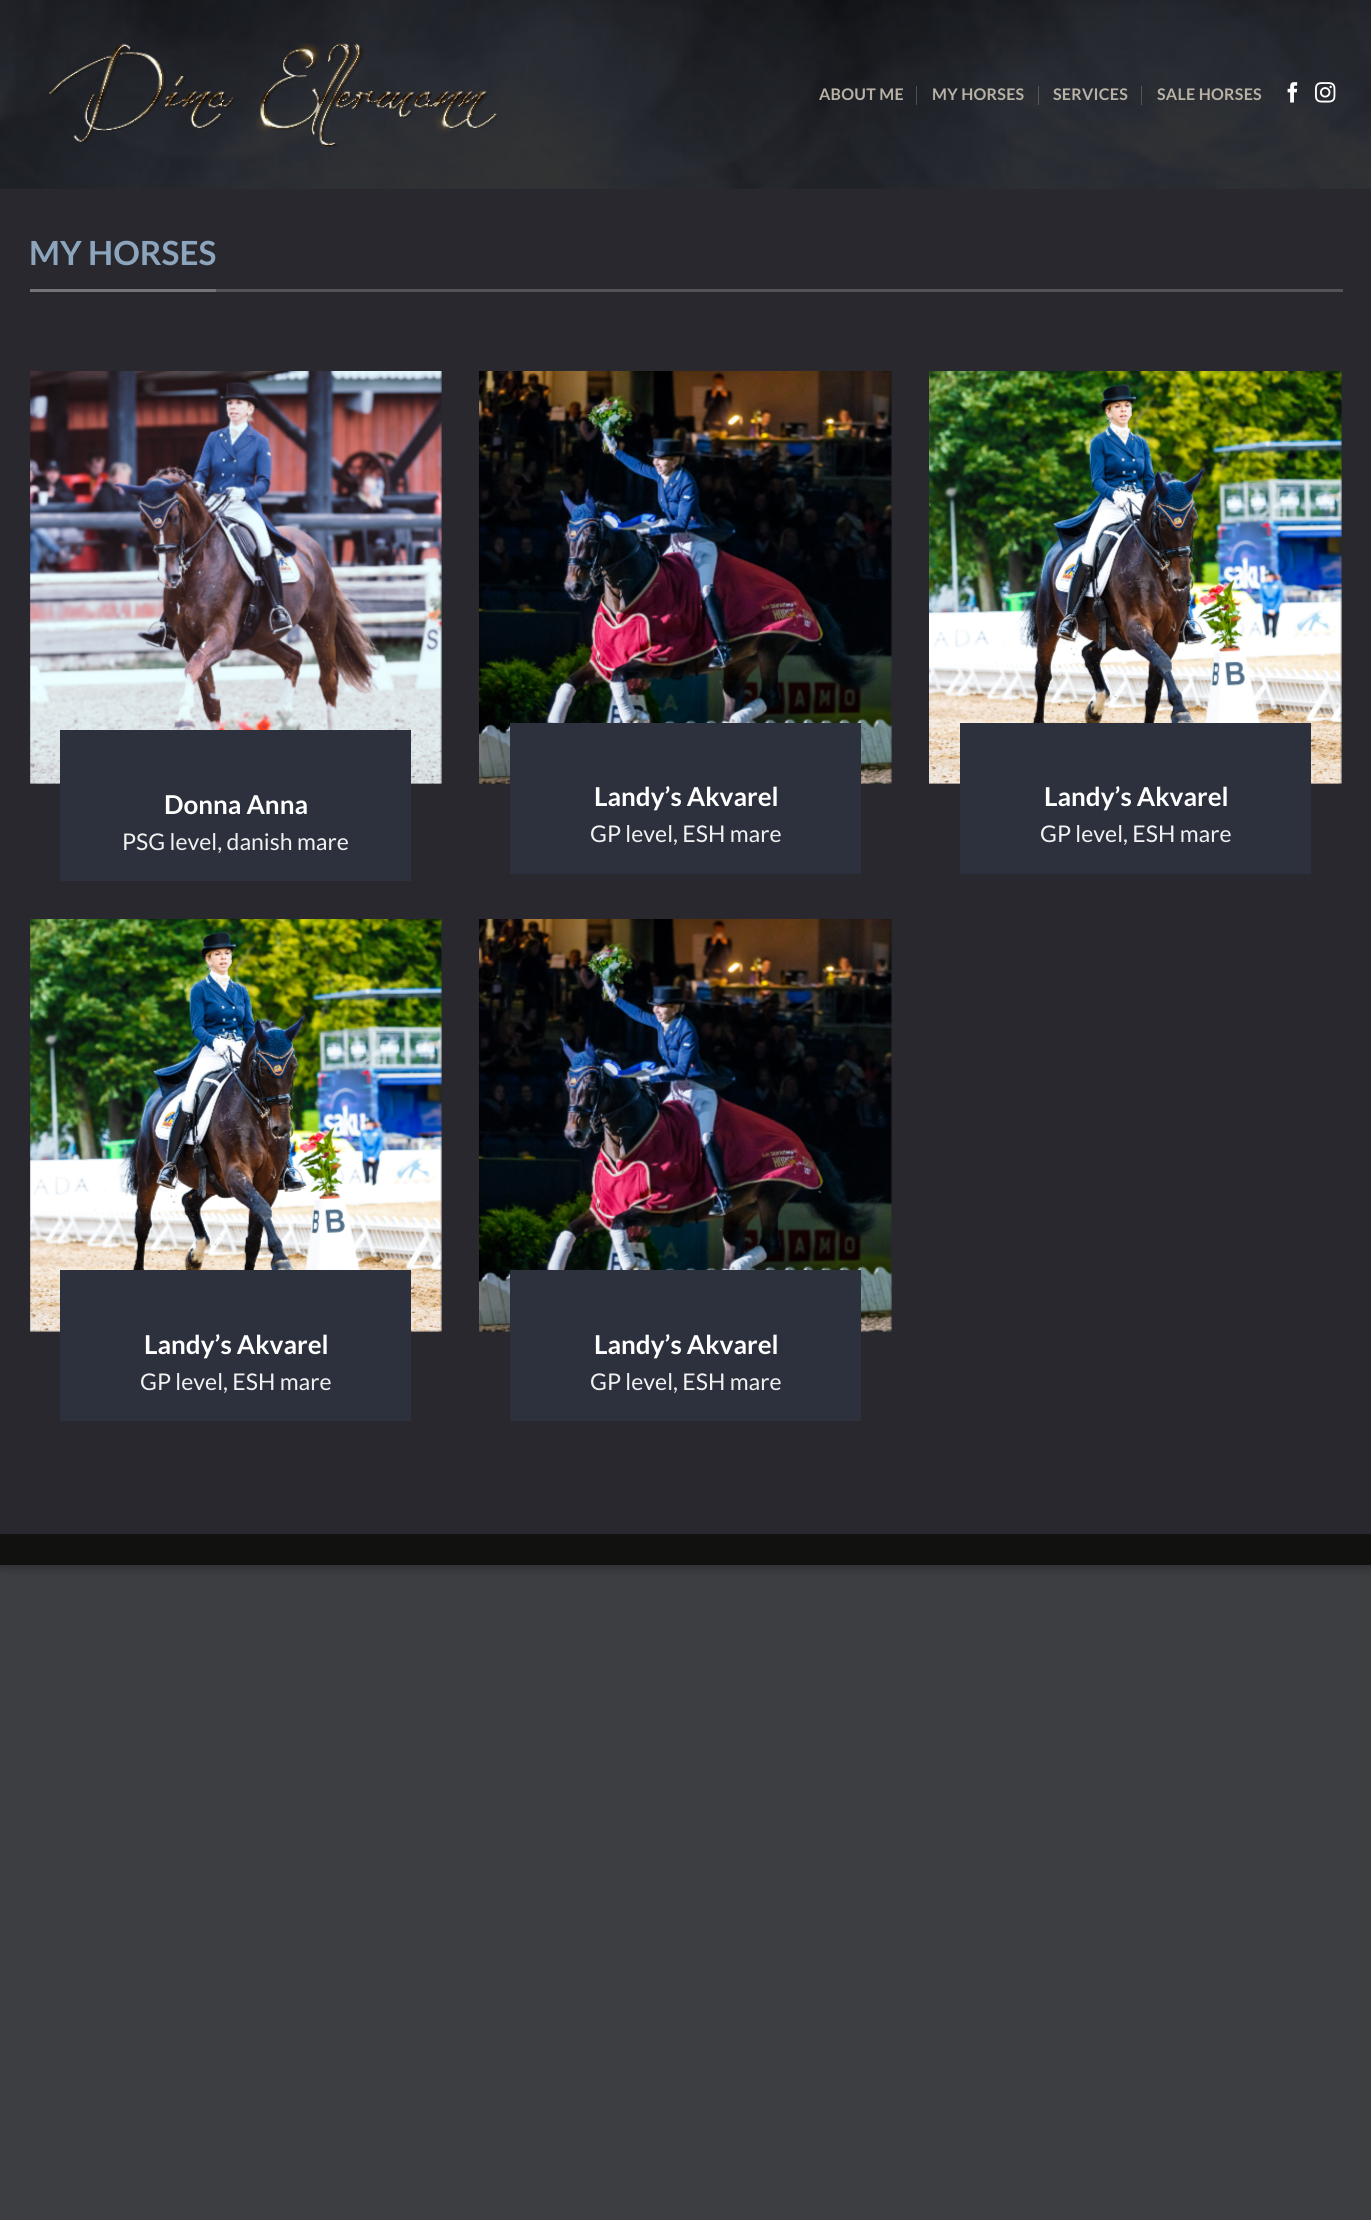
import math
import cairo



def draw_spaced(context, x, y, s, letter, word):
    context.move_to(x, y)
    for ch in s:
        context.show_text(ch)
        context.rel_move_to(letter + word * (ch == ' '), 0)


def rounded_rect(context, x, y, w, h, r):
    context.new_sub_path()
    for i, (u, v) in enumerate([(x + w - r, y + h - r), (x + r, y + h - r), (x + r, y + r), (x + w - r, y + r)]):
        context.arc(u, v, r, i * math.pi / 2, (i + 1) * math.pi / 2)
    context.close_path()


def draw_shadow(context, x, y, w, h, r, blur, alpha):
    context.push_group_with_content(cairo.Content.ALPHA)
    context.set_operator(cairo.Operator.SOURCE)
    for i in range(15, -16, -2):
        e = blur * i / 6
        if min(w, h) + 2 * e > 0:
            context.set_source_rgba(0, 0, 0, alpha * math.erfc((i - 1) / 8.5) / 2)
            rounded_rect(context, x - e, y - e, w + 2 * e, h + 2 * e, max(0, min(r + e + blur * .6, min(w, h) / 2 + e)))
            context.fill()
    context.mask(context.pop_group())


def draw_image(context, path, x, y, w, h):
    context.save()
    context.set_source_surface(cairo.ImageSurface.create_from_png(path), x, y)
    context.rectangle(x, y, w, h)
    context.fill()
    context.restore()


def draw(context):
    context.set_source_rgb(60 / 255, 62 / 255, 66 / 255)
    context.paint()
    context.set_source_rgb(0, 0, 0)
    draw_shadow(context, 0, 4, 1371, 1565, 0, 4, 0.23)
    context.set_source_rgb(40 / 255, 40 / 255, 46 / 255)
    context.rectangle(0, 188, 1371, 1346)
    context.fill()
    draw_image(context, "images/1.png", 0, 0, 1371, 189)
    draw_image(context, "images/2.png", 49, 43, 449, 104)
    context.set_source_rgb(76 / 255, 79 / 255, 83 / 255)
    context.rectangle(916, 86, 1, 19)
    context.fill()
    context.set_source_rgba(1, 1, 1, 0.2)
    context.rectangle(1038, 86, 1, 19)
    context.fill()
    context.set_source_rgb(83 / 255, 85 / 255, 91 / 255)
    context.rectangle(1141, 86, 1, 19)
    context.fill()
    draw_image(context, "images/3.png", 1287, 82, 11, 21)
    draw_image(context, "images/4.png", 1315, 82, 21, 21)
    context.set_source_rgb(83 / 255, 83 / 255, 88 / 255)
    context.rectangle(216, 289, 1127, 3)
    context.fill()
    context.set_source_rgb(117 / 255, 117 / 255, 121 / 255)
    context.rectangle(30, 289, 186, 3)
    context.fill()
    draw_image(context, "images/5.png", 30, 371, 412, 413)
    context.set_source_rgb(45 / 255, 49 / 255, 61 / 255)
    context.rectangle(60, 730, 351, 151)
    context.fill()
    draw_image(context, "images/6.png", 479, 371, 413, 413)
    context.rectangle(510, 723, 351, 151)
    context.fill()
    draw_image(context, "images/7.png", 929, 371, 413, 413)
    context.rectangle(960, 723, 351, 151)
    context.fill()
    draw_image(context, "images/8.png", 30, 919, 412, 413)
    context.rectangle(60, 1270, 351, 151)
    context.fill()
    draw_image(context, "images/9.png", 479, 919, 413, 413)
    context.rectangle(510, 1270, 351, 151)
    context.fill()
    context.set_source_rgb(17 / 255, 17 / 255, 16 / 255)
    context.rectangle(0, 1534, 1371, 31)
    context.fill()
    context.select_font_face("Lato", cairo.FontSlant.NORMAL, cairo.FontWeight.BOLD)
    context.set_font_size(16)
    context.set_source_rgb(183 / 255, 178 / 255, 165 / 255)
    draw_spaced(context, 819, 100, "ABOUT ME", 0.25, 0)
    draw_spaced(context, 932, 100, "MY HORSES", 0.25, 0)
    draw_spaced(context, 1053, 100, "SERVICES", 0.25, 0)
    draw_spaced(context, 1157, 100, "SALE HORSES", 0.25, 0)
    context.set_font_size(33.25)
    context.set_source_rgb(140 / 255, 165 / 255, 189 / 255)
    context.move_to(29, 265)
    context.show_text("MY HORSES")
    context.set_font_size(26)
    context.set_source_rgb(1, 1, 1)
    context.move_to(164, 814)
    context.show_text("Donna Anna")
    context.select_font_face("Lato")
    context.set_font_size(23)
    context.set_source_rgb(241 / 255, 241 / 255, 241 / 255)
    context.move_to(122, 850)
    context.show_text("PSG level, danish mare")
    context.select_font_face("Lato", cairo.FontSlant.NORMAL, cairo.FontWeight.BOLD)
    context.set_font_size(26)
    context.set_source_rgb(1, 1, 1)
    context.move_to(594, 806)
    context.show_text("Landy’s Akvarel")
    context.select_font_face("Lato")
    context.set_font_size(23)
    context.set_source_rgb(241 / 255, 241 / 255, 241 / 255)
    context.move_to(590, 842)
    context.show_text("GP level, ESH mare")
    context.select_font_face("Lato", cairo.FontSlant.NORMAL, cairo.FontWeight.BOLD)
    context.set_font_size(26)
    context.set_source_rgb(1, 1, 1)
    context.move_to(1044, 806)
    context.show_text("Landy’s Akvarel")
    context.select_font_face("Lato")
    context.set_font_size(23)
    context.set_source_rgb(241 / 255, 241 / 255, 241 / 255)
    context.move_to(1040, 842)
    context.show_text("GP level, ESH mare")
    context.select_font_face("Lato", cairo.FontSlant.NORMAL, cairo.FontWeight.BOLD)
    context.set_font_size(26)
    context.set_source_rgb(1, 1, 1)
    context.move_to(144, 1354)
    context.show_text("Landy’s Akvarel")
    context.select_font_face("Lato")
    context.set_font_size(23)
    context.set_source_rgb(241 / 255, 241 / 255, 241 / 255)
    context.move_to(140, 1390)
    context.show_text("GP level, ESH mare")
    context.select_font_face("Lato", cairo.FontSlant.NORMAL, cairo.FontWeight.BOLD)
    context.set_font_size(26)
    context.set_source_rgb(1, 1, 1)
    context.move_to(594, 1354)
    context.show_text("Landy’s Akvarel")
    context.select_font_face("Lato")
    context.set_font_size(23)
    context.set_source_rgb(241 / 255, 241 / 255, 241 / 255)
    context.move_to(590, 1390)
    context.show_text("GP level, ESH mare")


surface = cairo.ImageSurface(cairo.Format.RGB24, 1371, 2220)
context = cairo.Context(surface)
options = cairo.FontOptions()
options.set_hint_metrics(cairo.HintMetrics.OFF)
options.set_hint_style(cairo.HintStyle.NONE)
context.set_font_options(options)
context.set_miter_limit(4)
draw(context)
surface.write_to_png("out.png")
